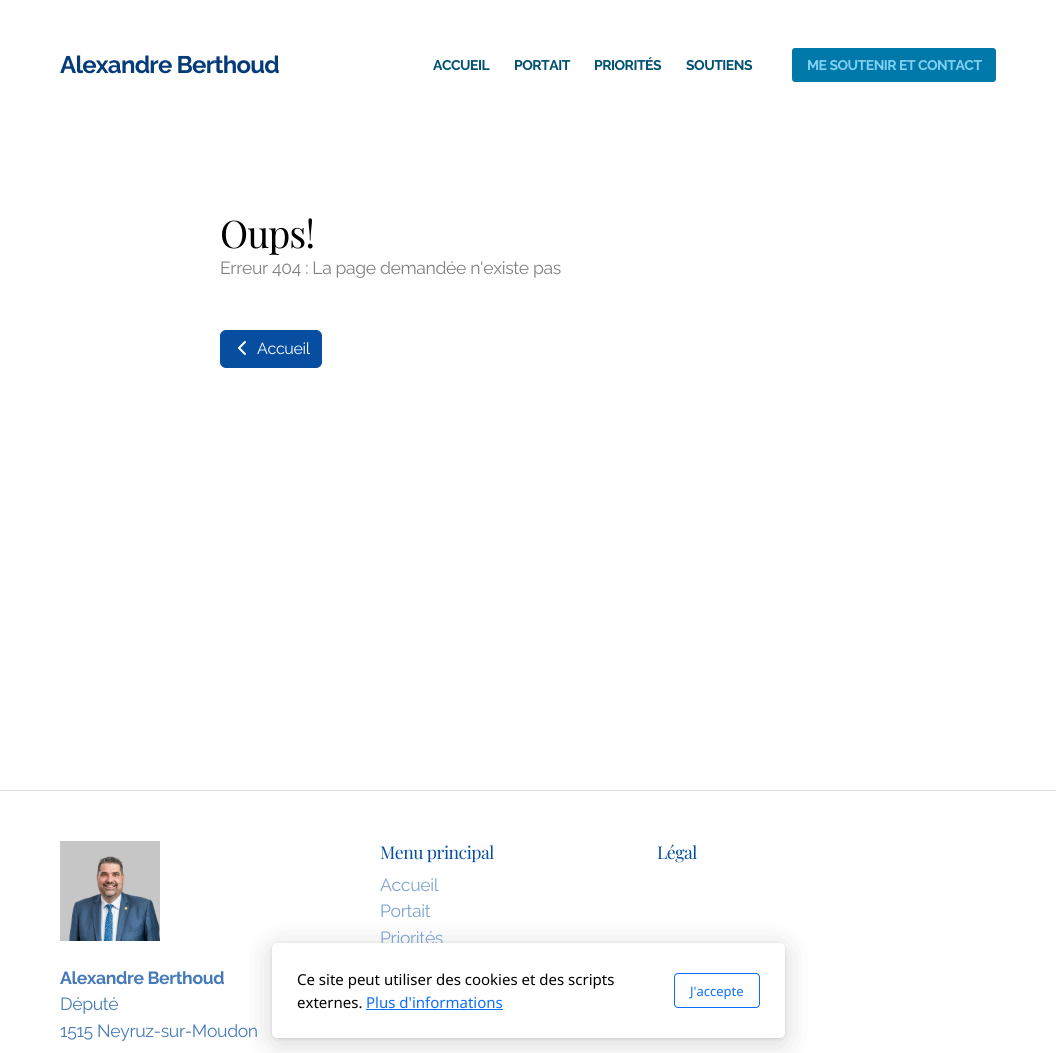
import math
import cairo



def draw_spaced(context, x, y, s, letter, word):
    context.move_to(x, y)
    for ch in s:
        context.show_text(ch)
        context.rel_move_to(letter + word * (ch == ' '), 0)


def rounded_rect(context, x, y, w, h, r):
    context.new_sub_path()
    for i, (u, v) in enumerate([(x + w - r, y + h - r), (x + r, y + h - r), (x + r, y + r), (x + w - r, y + r)]):
        context.arc(u, v, r, i * math.pi / 2, (i + 1) * math.pi / 2)
    context.close_path()


def draw_shadow(context, x, y, w, h, r, blur, alpha):
    context.push_group_with_content(cairo.Content.ALPHA)
    context.set_operator(cairo.Operator.SOURCE)
    for i in range(15, -16, -2):
        e = blur * i / 6
        if min(w, h) + 2 * e > 0:
            context.set_source_rgba(0, 0, 0, alpha * math.erfc((i - 1) / 8.5) / 2)
            rounded_rect(context, x - e, y - e, w + 2 * e, h + 2 * e, max(0, min(r + e + blur * .6, min(w, h) / 2 + e)))
            context.fill()
    context.mask(context.pop_group())


def draw_image(context, path, x, y, w, h):
    context.save()
    context.set_source_surface(cairo.ImageSurface.create_from_png(path), x, y)
    context.rectangle(x, y, w, h)
    context.fill()
    context.restore()


def draw(context):
    context.set_source_rgb(1, 1, 1)
    context.paint()
    context.set_source_rgb(0, 120 / 255, 170 / 255)
    rounded_rect(context, 792, 48, 204, 34, 3)
    context.fill()
    context.set_source_rgb(7 / 255, 78 / 255, 161 / 255)
    rounded_rect(context, 220.5, 330.5, 101, 37, 5.5)
    context.fill_preserve()
    context.set_line_width(1)
    context.stroke()
    draw_image(context, "images/1.png", 238, 341, 8, 14)
    context.set_source_rgb(222 / 255, 226 / 255, 230 / 255)
    context.rectangle(0, 790, 1056, 1)
    context.fill()
    draw_image(context, "images/2.png", 60, 841, 100, 100)
    context.set_source_rgb(0, 0, 0)
    draw_shadow(context, 272, 948, 513, 95, 5, 15, 0.16)
    draw_shadow(context, 272, 944, 513, 95, 5, 1.5, 0.1)
    context.select_font_face("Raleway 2 Thin")
    context.set_font_size(24)
    context.set_source_rgb(5 / 255, 59 / 255, 121 / 255)
    draw_spaced(context, 60, 73, "Alexandre Berthoud", -0.75, 0)
    context.set_font_size(14)
    context.set_source_rgb(0, 80 / 255, 113 / 255)
    draw_spaced(context, 433, 70, "ACCUEIL", -0.5, 0)
    draw_spaced(context, 514, 70, "PORTAIT", -0.5, 0)
    draw_spaced(context, 594, 70, "PRIORITÉS", -0.5, 0)
    draw_spaced(context, 686, 70, "SOUTIENS", -0.5, 0)
    context.set_source_rgb(128 / 255, 208 / 255, 241 / 255)
    draw_spaced(context, 807, 70, "ME SOUTENIR ET CONTACT", -0.5, 0)
    context.select_font_face("Playfair Display")
    context.set_font_size(38)
    context.set_source_rgb(0, 0, 0)
    draw_spaced(context, 220, 248, "Oups!", -1, 0)
    context.select_font_face("Raleway Thin")
    context.set_font_size(17.6)
    context.set_source_rgb(128 / 255, 128 / 255, 128 / 255)
    draw_spaced(context, 220, 274, "Erreur 404 : La page demandée n'existe pas", -0.35, 0)
    context.set_font_size(16)
    context.set_source_rgb(1, 1, 1)
    draw_spaced(context, 257, 354, "Accueil", -0.35, 0)
    context.select_font_face("Playfair Display")
    context.set_font_size(17.6)
    context.set_source_rgb(7 / 255, 78 / 255, 161 / 255)
    draw_spaced(context, 380, 859, "Menu principal", -0.5, 0)
    context.select_font_face("Raleway Thin")
    context.set_source_rgb(125 / 255, 162 / 255, 206 / 255)
    draw_spaced(context, 380, 891, "Accueil", -0.35, 0)
    draw_spaced(context, 380, 917, "Portait", -0.35, 0)
    draw_spaced(context, 380, 944, "Priorités", -0.35, 0)
    context.select_font_face("Playfair Display")
    context.set_source_rgb(7 / 255, 78 / 255, 161 / 255)
    draw_spaced(context, 657, 859, "Légal", -0.5, 0)
    context.select_font_face("Raleway 2 Thin")
    context.set_source_rgb(69 / 255, 122 / 255, 185 / 255)
    draw_spaced(context, 60, 984, "Alexandre Berthoud", -0.35, 0)
    context.select_font_face("Raleway Thin")
    draw_spaced(context, 60, 1010, "Député", -0.35, 0)
    draw_spaced(context, 60, 1037, "1515 Neyruz-sur-Moudon", -0.35, 0)
    context.set_source_rgb(1, 1, 1)
    rounded_rect(context, 272, 943, 513, 95, 5)
    context.fill()
    context.select_font_face("Noto Sans")
    context.set_font_size(15)
    context.set_source_rgb(0, 0, 0)
    context.move_to(297, 985)
    context.show_text("Ce site peut utiliser des cookies et des scripts")
    context.move_to(297, 1008)
    context.show_text("externes.")
    context.set_source_rgb(13 / 255, 110 / 255, 253 / 255)
    context.move_to(366, 1008)
    context.show_text("Plus d'informations")
    context.rectangle(366, 1009, 137, 1)
    context.fill()
    rounded_rect(context, 674.5, 973.5, 85, 34, 3.5)
    context.stroke()
    context.set_font_size(13)
    context.move_to(690, 996)
    context.show_text("J'accepte")


surface = cairo.ImageSurface(cairo.Format.RGB24, 1056, 1053)
context = cairo.Context(surface)
options = cairo.FontOptions()
options.set_hint_metrics(cairo.HintMetrics.OFF)
options.set_hint_style(cairo.HintStyle.NONE)
context.set_font_options(options)
context.set_miter_limit(4)
draw(context)
surface.write_to_png("out.png")
